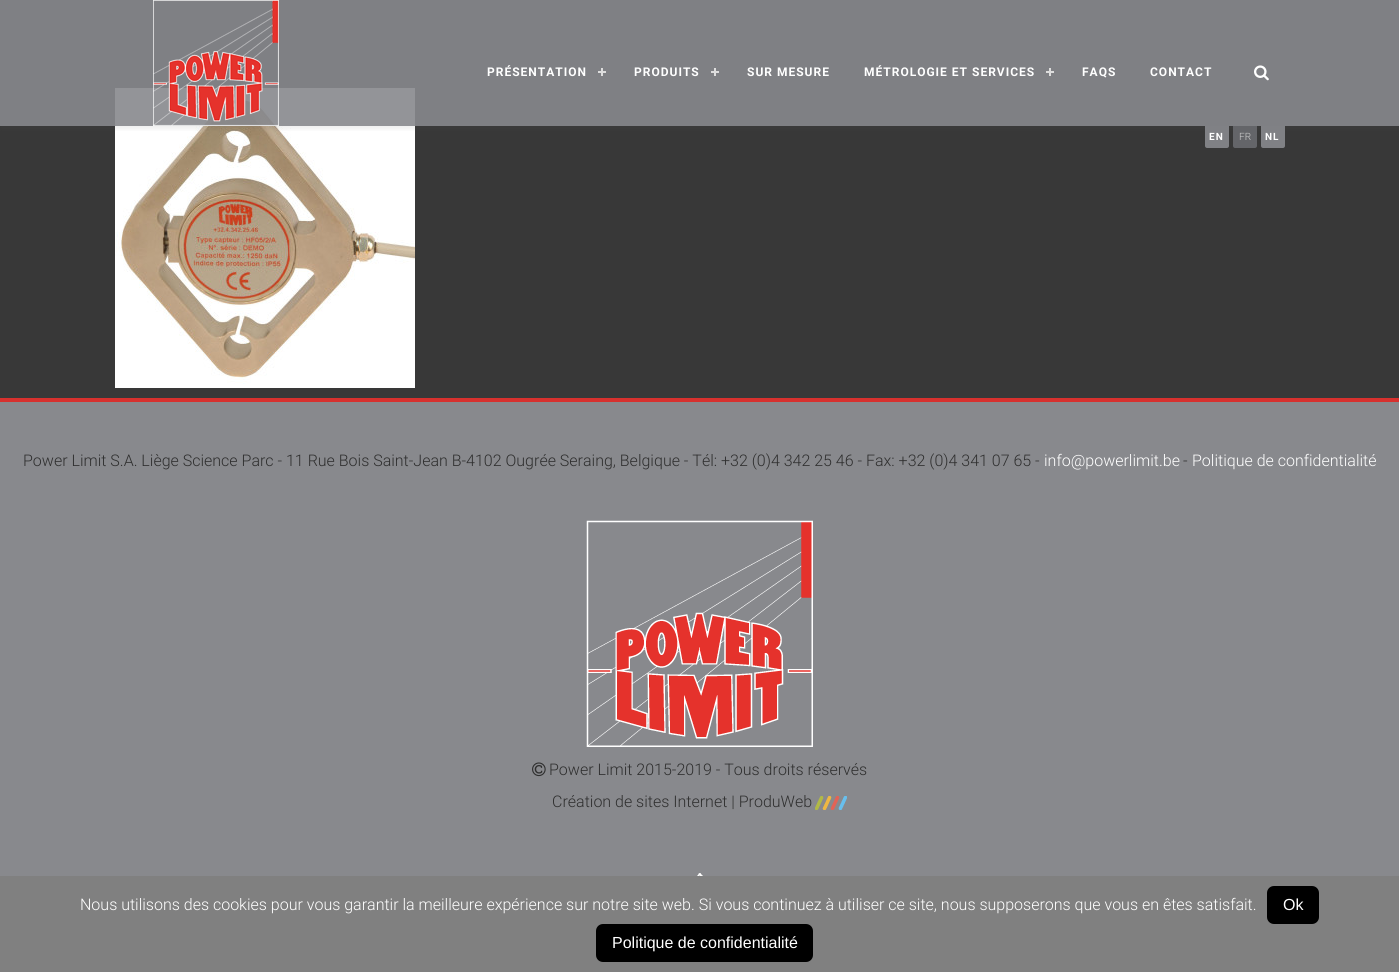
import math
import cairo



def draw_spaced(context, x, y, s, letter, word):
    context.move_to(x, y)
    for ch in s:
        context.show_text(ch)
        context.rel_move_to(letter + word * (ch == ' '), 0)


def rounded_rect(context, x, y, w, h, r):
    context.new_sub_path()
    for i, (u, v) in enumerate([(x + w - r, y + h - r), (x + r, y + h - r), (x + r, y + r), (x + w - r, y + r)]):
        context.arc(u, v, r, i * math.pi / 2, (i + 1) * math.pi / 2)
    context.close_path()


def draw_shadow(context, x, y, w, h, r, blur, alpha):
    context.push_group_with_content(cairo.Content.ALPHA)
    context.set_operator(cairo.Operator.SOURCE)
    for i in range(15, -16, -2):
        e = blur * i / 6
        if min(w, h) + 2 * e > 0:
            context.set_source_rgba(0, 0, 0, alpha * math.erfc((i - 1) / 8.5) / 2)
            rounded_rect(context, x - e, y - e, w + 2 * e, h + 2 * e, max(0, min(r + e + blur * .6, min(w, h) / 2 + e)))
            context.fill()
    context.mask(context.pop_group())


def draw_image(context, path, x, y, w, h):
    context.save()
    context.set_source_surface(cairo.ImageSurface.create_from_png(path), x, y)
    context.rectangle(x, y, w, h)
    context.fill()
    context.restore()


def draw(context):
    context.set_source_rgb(56 / 255, 56 / 255, 56 / 255)
    context.paint()
    draw_image(context, "images/1.png", 115, 88, 300, 300)
    context.set_source_rgba(136 / 255, 137 / 255, 141 / 255, 0.9)
    context.rectangle(0, 0, 1399, 126)
    context.fill()
    context.save()
    context.rectangle(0, 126, 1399, 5)
    context.clip()
    context.set_source_rgb(80 / 255, 80 / 255, 80 / 255)
    draw_shadow(context, 0, 3, 1399, 126, 0, 2.5, 0.1)
    context.restore()
    draw_image(context, "images/2.png", 153, 0, 126, 126)
    context.set_source_rgb(221 / 255, 221 / 255, 221 / 255)
    context.rectangle(601, 68, 2, 8)
    context.fill()
    context.rectangle(598, 71, 8, 2)
    context.fill()
    context.rectangle(714, 68, 2, 8)
    context.fill()
    context.rectangle(711, 71, 8, 2)
    context.fill()
    context.rectangle(1049, 68, 2, 8)
    context.fill()
    context.rectangle(1046, 71, 8, 2)
    context.fill()
    draw_image(context, "images/3.png", 1254, 65, 15, 16)
    context.set_source_rgb(128 / 255, 129 / 255, 133 / 255)
    context.new_path()
    context.move_to(1205, 126)
    context.line_to(1229, 126)
    context.line_to(1229, 146)
    context.curve_to(1229, 147, 1228, 148, 1227, 148)
    context.line_to(1207, 148)
    context.curve_to(1206, 148, 1205, 147, 1205, 146)
    context.close_path()
    context.fill()
    context.set_source_rgb(100 / 255, 101 / 255, 105 / 255)
    context.new_path()
    context.move_to(1233, 126)
    context.line_to(1257, 126)
    context.line_to(1257, 146)
    context.curve_to(1257, 147, 1256, 148, 1255, 148)
    context.line_to(1235, 148)
    context.curve_to(1234, 148, 1233, 147, 1233, 146)
    context.close_path()
    context.fill()
    context.set_source_rgb(128 / 255, 129 / 255, 133 / 255)
    context.new_path()
    context.move_to(1261, 126)
    context.line_to(1285, 126)
    context.line_to(1285, 146)
    context.curve_to(1285, 147, 1284, 148, 1283, 148)
    context.line_to(1263, 148)
    context.curve_to(1262, 148, 1261, 147, 1261, 146)
    context.close_path()
    context.fill()
    context.set_source_rgb(136 / 255, 137 / 255, 141 / 255)
    context.rectangle(0, 402, 1399, 474)
    context.fill()
    context.set_source_rgb(215 / 255, 49 / 255, 46 / 255)
    context.rectangle(0, 398, 1399, 4)
    context.fill()
    draw_image(context, "images/4.png", 586, 520, 227, 227)
    draw_image(context, "images/5.png", 532, 762, 14, 15)
    draw_image(context, "images/6.png", 815, 796, 32, 14)
    context.set_source_rgb(1, 1, 1)
    context.new_path()
    context.move_to(700, 873)
    context.line_to(742, 915)
    context.line_to(741, 916)
    context.line_to(698, 874)
    context.close_path()
    context.fill()
    context.new_path()
    context.move_to(700, 873)
    context.line_to(701, 874)
    context.line_to(658, 916)
    context.line_to(657, 915)
    context.close_path()
    context.fill()
    context.set_source_rgb(128 / 255, 128 / 255, 128 / 255)
    context.rectangle(0, 876, 1399, 96)
    context.fill()
    context.set_source_rgb(0, 0, 0)
    rounded_rect(context, 1267, 886, 52, 38, 7)
    context.fill()
    rounded_rect(context, 596, 924, 217, 38, 7)
    context.fill()
    context.select_font_face("Roboto", cairo.FontSlant.NORMAL, cairo.FontWeight.BOLD)
    context.set_font_size(12)
    context.set_source_rgb(1, 1, 1)
    draw_spaced(context, 487, 76, "PRÉSENTATION", 1, 0)
    draw_spaced(context, 634, 76, "PRODUITS", 1, 0)
    draw_spaced(context, 747, 76, "SUR MESURE", 1, 0)
    draw_spaced(context, 864, 76, "MÉTROLOGIE ET SERVICES", 1, 0)
    draw_spaced(context, 1082, 76, "FAQS", 1, 0)
    draw_spaced(context, 1150, 76, "CONTACT", 1, 0)
    context.set_font_size(10)
    draw_spaced(context, 1209, 140, "EN", 1, 0)
    context.select_font_face("Roboto Light")
    context.set_source_rgb(208 / 255, 208 / 255, 208 / 255)
    context.move_to(1239, 140)
    context.show_text("FR")
    context.select_font_face("Roboto", cairo.FontSlant.NORMAL, cairo.FontWeight.BOLD)
    context.set_source_rgb(1, 1, 1)
    draw_spaced(context, 1265, 140, "NL", 1, 0)
    context.select_font_face("Roboto Light")
    context.set_font_size(16)
    context.set_source_rgb(47 / 255, 47 / 255, 47 / 255)
    context.move_to(23, 466)
    context.show_text("Power Limit S.A. Liège Science Parc - 11 Rue Bois Saint-Jean B-4102 Ougrée Seraing, Belgique - Tél: +32 (0)4 342 25 46 - Fax: +32 (0)4 341 07 65 -")
    context.set_source_rgb(1, 1, 1)
    context.move_to(1044, 466)
    context.show_text("info@powerlimit.be")
    context.set_source_rgb(47 / 255, 47 / 255, 47 / 255)
    context.move_to(1183, 466)
    context.show_text("-")
    context.set_source_rgb(1, 1, 1)
    context.move_to(1192, 466)
    context.show_text("Politique de confidentialité")
    context.set_source_rgb(47 / 255, 47 / 255, 47 / 255)
    context.move_to(549, 775)
    context.show_text("Power Limit 2015-2019 - Tous droits réservés")
    context.move_to(552, 807)
    context.show_text("Création de sites Internet | ProduWeb")
    context.set_source_rgb(1, 1, 1)
    context.move_to(80, 910)
    context.show_text("Nous utilisons des cookies pour vous garantir la meilleure expérience sur notre site web. Si vous continuez à utiliser ce site, nous supposerons que vous en êtes satisfait.")
    context.select_font_face("Liberation Sans")
    context.move_to(1283, 910)
    context.show_text("Ok")
    context.move_to(612, 948)
    context.show_text("Politique de confidentialité")


surface = cairo.ImageSurface(cairo.Format.RGB24, 1399, 972)
context = cairo.Context(surface)
options = cairo.FontOptions()
options.set_hint_metrics(cairo.HintMetrics.OFF)
options.set_hint_style(cairo.HintStyle.NONE)
context.set_font_options(options)
context.set_miter_limit(4)
draw(context)
surface.write_to_png("out.png")
